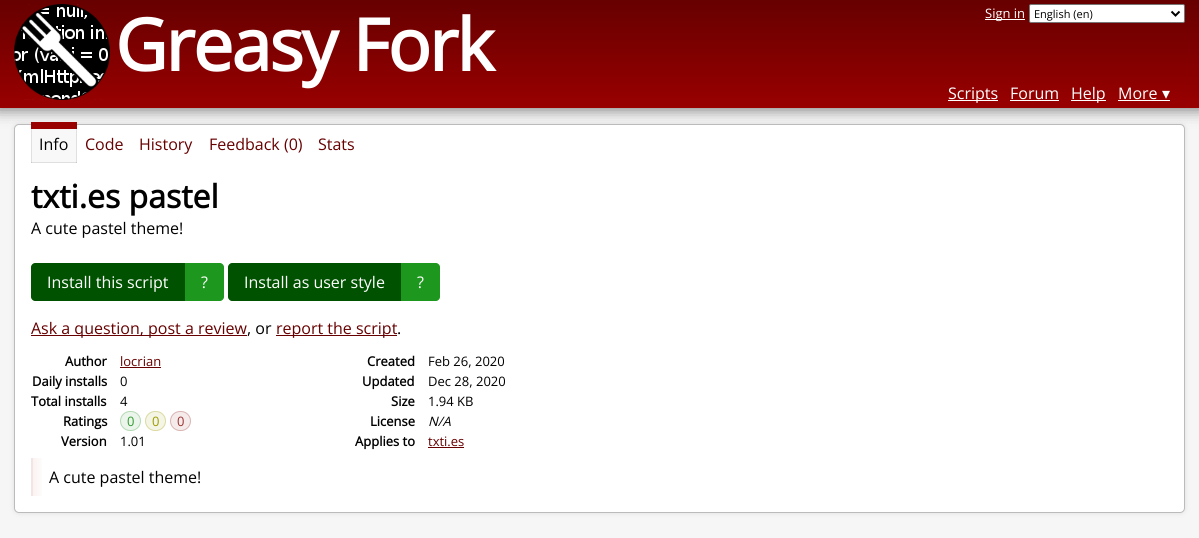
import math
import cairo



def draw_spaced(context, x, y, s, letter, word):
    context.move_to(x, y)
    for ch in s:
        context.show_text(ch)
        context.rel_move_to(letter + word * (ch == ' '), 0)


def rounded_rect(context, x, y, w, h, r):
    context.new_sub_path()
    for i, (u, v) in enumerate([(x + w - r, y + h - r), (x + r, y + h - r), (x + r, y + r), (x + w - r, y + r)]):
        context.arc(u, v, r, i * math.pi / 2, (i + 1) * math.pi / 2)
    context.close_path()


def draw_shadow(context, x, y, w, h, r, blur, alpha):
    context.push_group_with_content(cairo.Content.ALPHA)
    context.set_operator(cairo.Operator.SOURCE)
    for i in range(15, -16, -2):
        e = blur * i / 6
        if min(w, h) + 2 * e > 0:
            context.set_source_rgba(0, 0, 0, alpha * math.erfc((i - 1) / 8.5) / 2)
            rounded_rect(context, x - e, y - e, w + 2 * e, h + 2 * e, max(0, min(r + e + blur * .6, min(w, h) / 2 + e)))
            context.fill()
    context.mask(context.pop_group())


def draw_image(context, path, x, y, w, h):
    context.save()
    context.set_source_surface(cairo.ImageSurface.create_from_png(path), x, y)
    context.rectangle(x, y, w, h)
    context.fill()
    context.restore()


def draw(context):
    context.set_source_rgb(246 / 255, 246 / 255, 246 / 255)
    context.paint()
    context.set_source_rgb(0, 0, 0)
    draw_shadow(context, -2, -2, 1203, 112, 0, 7.5, 0.5)
    gradient = cairo.LinearGradient(600, 0, 600, 108)
    gradient.add_color_stop_rgba(0, 103 / 255, 0, 0, 1)
    gradient.add_color_stop_rgba(1, 153 / 255, 0, 0, 1)
    context.set_source(gradient)
    context.rectangle(0, 0, 1199, 108)
    context.fill()
    draw_image(context, "images/1.png", 14, 4, 96, 96)
    context.set_source_rgb(1, 1, 1)
    context.rectangle(985, 19, 40, 1)
    context.fill()
    rounded_rect(context, 1029.5, 4.5, 155, 18, 1.5)
    context.fill_preserve()
    context.set_source_rgb(118 / 255, 118 / 255, 118 / 255)
    context.set_line_width(1)
    context.stroke()
    context.new_path()
    context.move_to(1171.5, 11.5)
    context.line_to(1175.5, 15.5)
    context.line_to(1179.5, 11.5)
    context.set_source_rgb(0, 0, 0)
    context.set_line_width(2)
    context.stroke()
    context.set_source_rgb(1, 1, 1)
    context.rectangle(948, 100, 50, 1)
    context.fill()
    context.rectangle(1010, 100, 49, 1)
    context.fill()
    context.rectangle(1071, 100, 35, 1)
    context.fill()
    context.rectangle(1118, 100, 52, 1)
    context.fill()
    context.set_source_rgb(221 / 255, 221 / 255, 221 / 255)
    draw_shadow(context, 14, 124, 1171, 389, 5, 2.5, 1)
    context.set_source_rgb(1, 1, 1)
    rounded_rect(context, 14.5, 124.5, 1170, 388, 4.5)
    context.fill_preserve()
    context.set_source_rgb(187 / 255, 187 / 255, 187 / 255)
    context.set_line_width(1)
    context.stroke()
    context.set_source_rgba(0, 0, 0, 0.03)
    context.rectangle(31, 129, 46, 33)
    context.fill()
    context.set_source_rgb(223 / 255, 223 / 255, 223 / 255)
    context.rectangle(31, 162, 46, 1)
    context.fill()
    context.set_source_rgba(0, 0, 0, 0.1)
    context.rectangle(76, 129, 1, 34)
    context.fill()
    context.rectangle(31, 129, 1, 34)
    context.fill()
    context.set_source_rgb(153 / 255, 0, 0)
    context.rectangle(31, 122, 46, 7)
    context.fill()
    context.set_source_rgb(0, 82 / 255, 0)
    context.new_path()
    context.move_to(35, 263)
    context.line_to(185, 263)
    context.line_to(185, 301)
    context.line_to(35, 301)
    context.curve_to(33, 301, 31, 299, 31, 297)
    context.line_to(31, 267)
    context.curve_to(31, 265, 33, 263, 35, 263)
    context.close_path()
    context.fill()
    context.set_source_rgb(30 / 255, 151 / 255, 30 / 255)
    context.new_path()
    context.move_to(185, 263)
    context.line_to(220, 263)
    context.curve_to(222, 263, 224, 265, 224, 267)
    context.line_to(224, 297)
    context.curve_to(224, 299, 222, 301, 220, 301)
    context.line_to(185, 301)
    context.close_path()
    context.fill()
    context.set_source_rgb(0, 82 / 255, 0)
    context.new_path()
    context.move_to(232, 263)
    context.line_to(401, 263)
    context.line_to(401, 301)
    context.line_to(232, 301)
    context.curve_to(230, 301, 228, 299, 228, 297)
    context.line_to(228, 267)
    context.curve_to(228, 265, 230, 263, 232, 263)
    context.close_path()
    context.fill()
    context.set_source_rgb(30 / 255, 151 / 255, 30 / 255)
    context.new_path()
    context.move_to(401, 263)
    context.line_to(436, 263)
    context.curve_to(438, 263, 440, 265, 440, 267)
    context.line_to(440, 297)
    context.curve_to(440, 299, 438, 301, 436, 301)
    context.line_to(401, 301)
    context.close_path()
    context.fill()
    context.set_source_rgb(103 / 255, 0, 0)
    context.rectangle(31, 335, 216, 1)
    context.fill()
    context.rectangle(276, 335, 121, 1)
    context.fill()
    context.rectangle(120, 367, 41, 1)
    context.fill()
    context.set_source_rgb(235 / 255, 245 / 255, 235 / 255)
    rounded_rect(context, 120, 411, 21, 20, 10)
    context.fill()
    rounded_rect(context, 120.5, 411.5, 20, 19, 9.5)
    context.set_source_rgba(51 / 255, 155 / 255, 51 / 255, 0.3)
    context.stroke()
    context.set_source_rgb(245 / 255, 245 / 255, 230 / 255)
    rounded_rect(context, 145, 411, 21, 20, 10)
    context.fill()
    rounded_rect(context, 145.5, 411.5, 20, 19, 9.5)
    context.set_source_rgba(155 / 255, 155 / 255, 0, 0.3)
    context.stroke()
    context.set_source_rgb(245 / 255, 235 / 255, 235 / 255)
    rounded_rect(context, 170, 411, 21, 20, 10)
    context.fill()
    rounded_rect(context, 170.5, 411.5, 20, 19, 9.5)
    context.set_source_rgba(155 / 255, 51 / 255, 51 / 255, 0.3)
    context.stroke()
    context.set_source_rgb(103 / 255, 0, 0)
    context.rectangle(428, 447, 36, 1)
    context.fill()
    gradient = cairo.LinearGradient(33, 477, 1168, 477)
    gradient.add_color_stop_rgba(0, 252 / 255, 241 / 255, 241 / 255, 1)
    gradient.add_color_stop_rgba(0.01, 1, 1, 1, 1)
    context.set_source(gradient)
    context.rectangle(33, 458, 9, 38)
    context.fill()
    context.set_source_rgb(242 / 255, 229 / 255, 229 / 255)
    context.rectangle(31, 458, 2, 38)
    context.fill()
    context.select_font_face("Open Sans", cairo.FontSlant.NORMAL, cairo.FontWeight.BOLD)
    context.set_font_size(72)
    context.set_source_rgb(1, 1, 1)
    draw_spaced(context, 115, 71, "Greasy Fork", -2, 0)
    context.select_font_face("Open Sans")
    context.set_font_size(13)
    context.move_to(985, 18)
    context.show_text("Sign in")
    context.set_font_size(11)
    context.set_source_rgb(0, 0, 0)
    context.move_to(1034, 18)
    context.show_text("English (en)")
    context.set_font_size(16)
    context.set_source_rgb(1, 1, 1)
    context.move_to(948, 99)
    context.show_text("Scripts")
    context.move_to(1010, 99)
    context.show_text("Forum")
    context.move_to(1071, 99)
    context.show_text("Help")
    context.move_to(1118, 99)
    context.show_text("More")
    context.select_font_face("DejaVu Sans")
    context.move_to(1162, 99)
    context.show_text("▾")
    context.select_font_face("Open Sans")
    context.set_source_rgb(0, 0, 0)
    context.move_to(39, 150)
    context.show_text("Info")
    context.set_source_rgb(103 / 255, 0, 0)
    context.move_to(85, 150)
    context.show_text("Code")
    context.move_to(139, 150)
    context.show_text("History")
    context.move_to(209, 150)
    context.show_text("Feedback (0)")
    context.move_to(318, 150)
    context.show_text("Stats")
    context.select_font_face("Open Sans", cairo.FontSlant.NORMAL, cairo.FontWeight.BOLD)
    context.set_font_size(32)
    context.set_source_rgb(0, 0, 0)
    context.move_to(31, 208)
    context.show_text("txti.es pastel")
    context.select_font_face("Open Sans")
    context.set_font_size(16)
    context.move_to(31, 234)
    context.show_text("A cute pastel theme!")
    context.set_source_rgb(1, 1, 1)
    context.move_to(47, 288)
    context.show_text("Install this script")
    context.move_to(201, 288)
    context.show_text("?")
    context.move_to(244, 288)
    context.show_text("Install as user style")
    context.move_to(417, 288)
    context.show_text("?")
    context.set_source_rgb(103 / 255, 0, 0)
    context.move_to(31, 334)
    context.show_text("Ask a question, post a review")
    context.set_source_rgb(0, 0, 0)
    context.move_to(247, 334)
    context.show_text(", or")
    context.set_source_rgb(103 / 255, 0, 0)
    context.move_to(276, 334)
    context.show_text("report the script")
    context.set_source_rgb(0, 0, 0)
    context.move_to(397, 334)
    context.show_text(".")
    context.select_font_face("Open Sans", cairo.FontSlant.NORMAL, cairo.FontWeight.BOLD)
    context.set_font_size(13)
    context.move_to(65, 366)
    context.show_text("Author")
    context.select_font_face("Open Sans")
    context.set_source_rgb(103 / 255, 0, 0)
    context.move_to(120, 366)
    context.show_text("locrian")
    context.select_font_face("Open Sans", cairo.FontSlant.NORMAL, cairo.FontWeight.BOLD)
    context.set_source_rgb(0, 0, 0)
    context.move_to(367, 366)
    context.show_text("Created")
    context.select_font_face("Open Sans")
    context.move_to(428, 366)
    context.show_text("Feb 26, 2020")
    context.select_font_face("Open Sans", cairo.FontSlant.NORMAL, cairo.FontWeight.BOLD)
    context.move_to(32, 386)
    context.show_text("Daily installs")
    context.select_font_face("Open Sans")
    context.move_to(120, 386)
    context.show_text("0")
    context.select_font_face("Open Sans", cairo.FontSlant.NORMAL, cairo.FontWeight.BOLD)
    context.move_to(362, 386)
    context.show_text("Updated")
    context.select_font_face("Open Sans")
    context.move_to(428, 386)
    context.show_text("Dec 28, 2020")
    context.select_font_face("Open Sans", cairo.FontSlant.NORMAL, cairo.FontWeight.BOLD)
    context.move_to(31, 406)
    context.show_text("Total installs")
    context.select_font_face("Open Sans")
    context.move_to(120, 406)
    context.show_text("4")
    context.select_font_face("Open Sans", cairo.FontSlant.NORMAL, cairo.FontWeight.BOLD)
    context.move_to(391, 406)
    context.show_text("Size")
    context.select_font_face("Open Sans")
    context.move_to(428, 406)
    context.show_text("1.94 KB")
    context.select_font_face("Open Sans", cairo.FontSlant.NORMAL, cairo.FontWeight.BOLD)
    context.move_to(63, 426)
    context.show_text("Ratings")
    context.select_font_face("Open Sans")
    context.set_source_rgb(51 / 255, 155 / 255, 51 / 255)
    context.move_to(127, 426)
    context.show_text("0")
    context.set_source_rgb(155 / 255, 155 / 255, 0)
    context.move_to(152, 426)
    context.show_text("0")
    context.set_source_rgb(155 / 255, 51 / 255, 51 / 255)
    context.move_to(177, 426)
    context.show_text("0")
    context.select_font_face("Open Sans", cairo.FontSlant.NORMAL, cairo.FontWeight.BOLD)
    context.set_source_rgb(0, 0, 0)
    context.move_to(370, 426)
    context.show_text("License")
    context.select_font_face("Open Sans", cairo.FontSlant.ITALIC)
    context.move_to(428, 426)
    context.show_text("N/A")
    context.select_font_face("Open Sans", cairo.FontSlant.NORMAL, cairo.FontWeight.BOLD)
    context.move_to(61, 446)
    context.show_text("Version")
    context.select_font_face("Open Sans")
    context.move_to(120, 446)
    context.show_text("1.01")
    context.select_font_face("Open Sans", cairo.FontSlant.NORMAL, cairo.FontWeight.BOLD)
    context.move_to(355, 446)
    context.show_text("Applies to")
    context.select_font_face("Open Sans")
    context.set_source_rgb(103 / 255, 0, 0)
    context.move_to(428, 446)
    context.show_text("txti.es")
    context.set_font_size(16)
    context.set_source_rgb(0, 0, 0)
    context.move_to(49, 483)
    context.show_text("A cute pastel theme!")


surface = cairo.ImageSurface(cairo.Format.RGB24, 1199, 538)
context = cairo.Context(surface)
options = cairo.FontOptions()
options.set_hint_metrics(cairo.HintMetrics.OFF)
options.set_hint_style(cairo.HintStyle.NONE)
context.set_font_options(options)
context.set_miter_limit(4)
draw(context)
surface.write_to_png("out.png")
